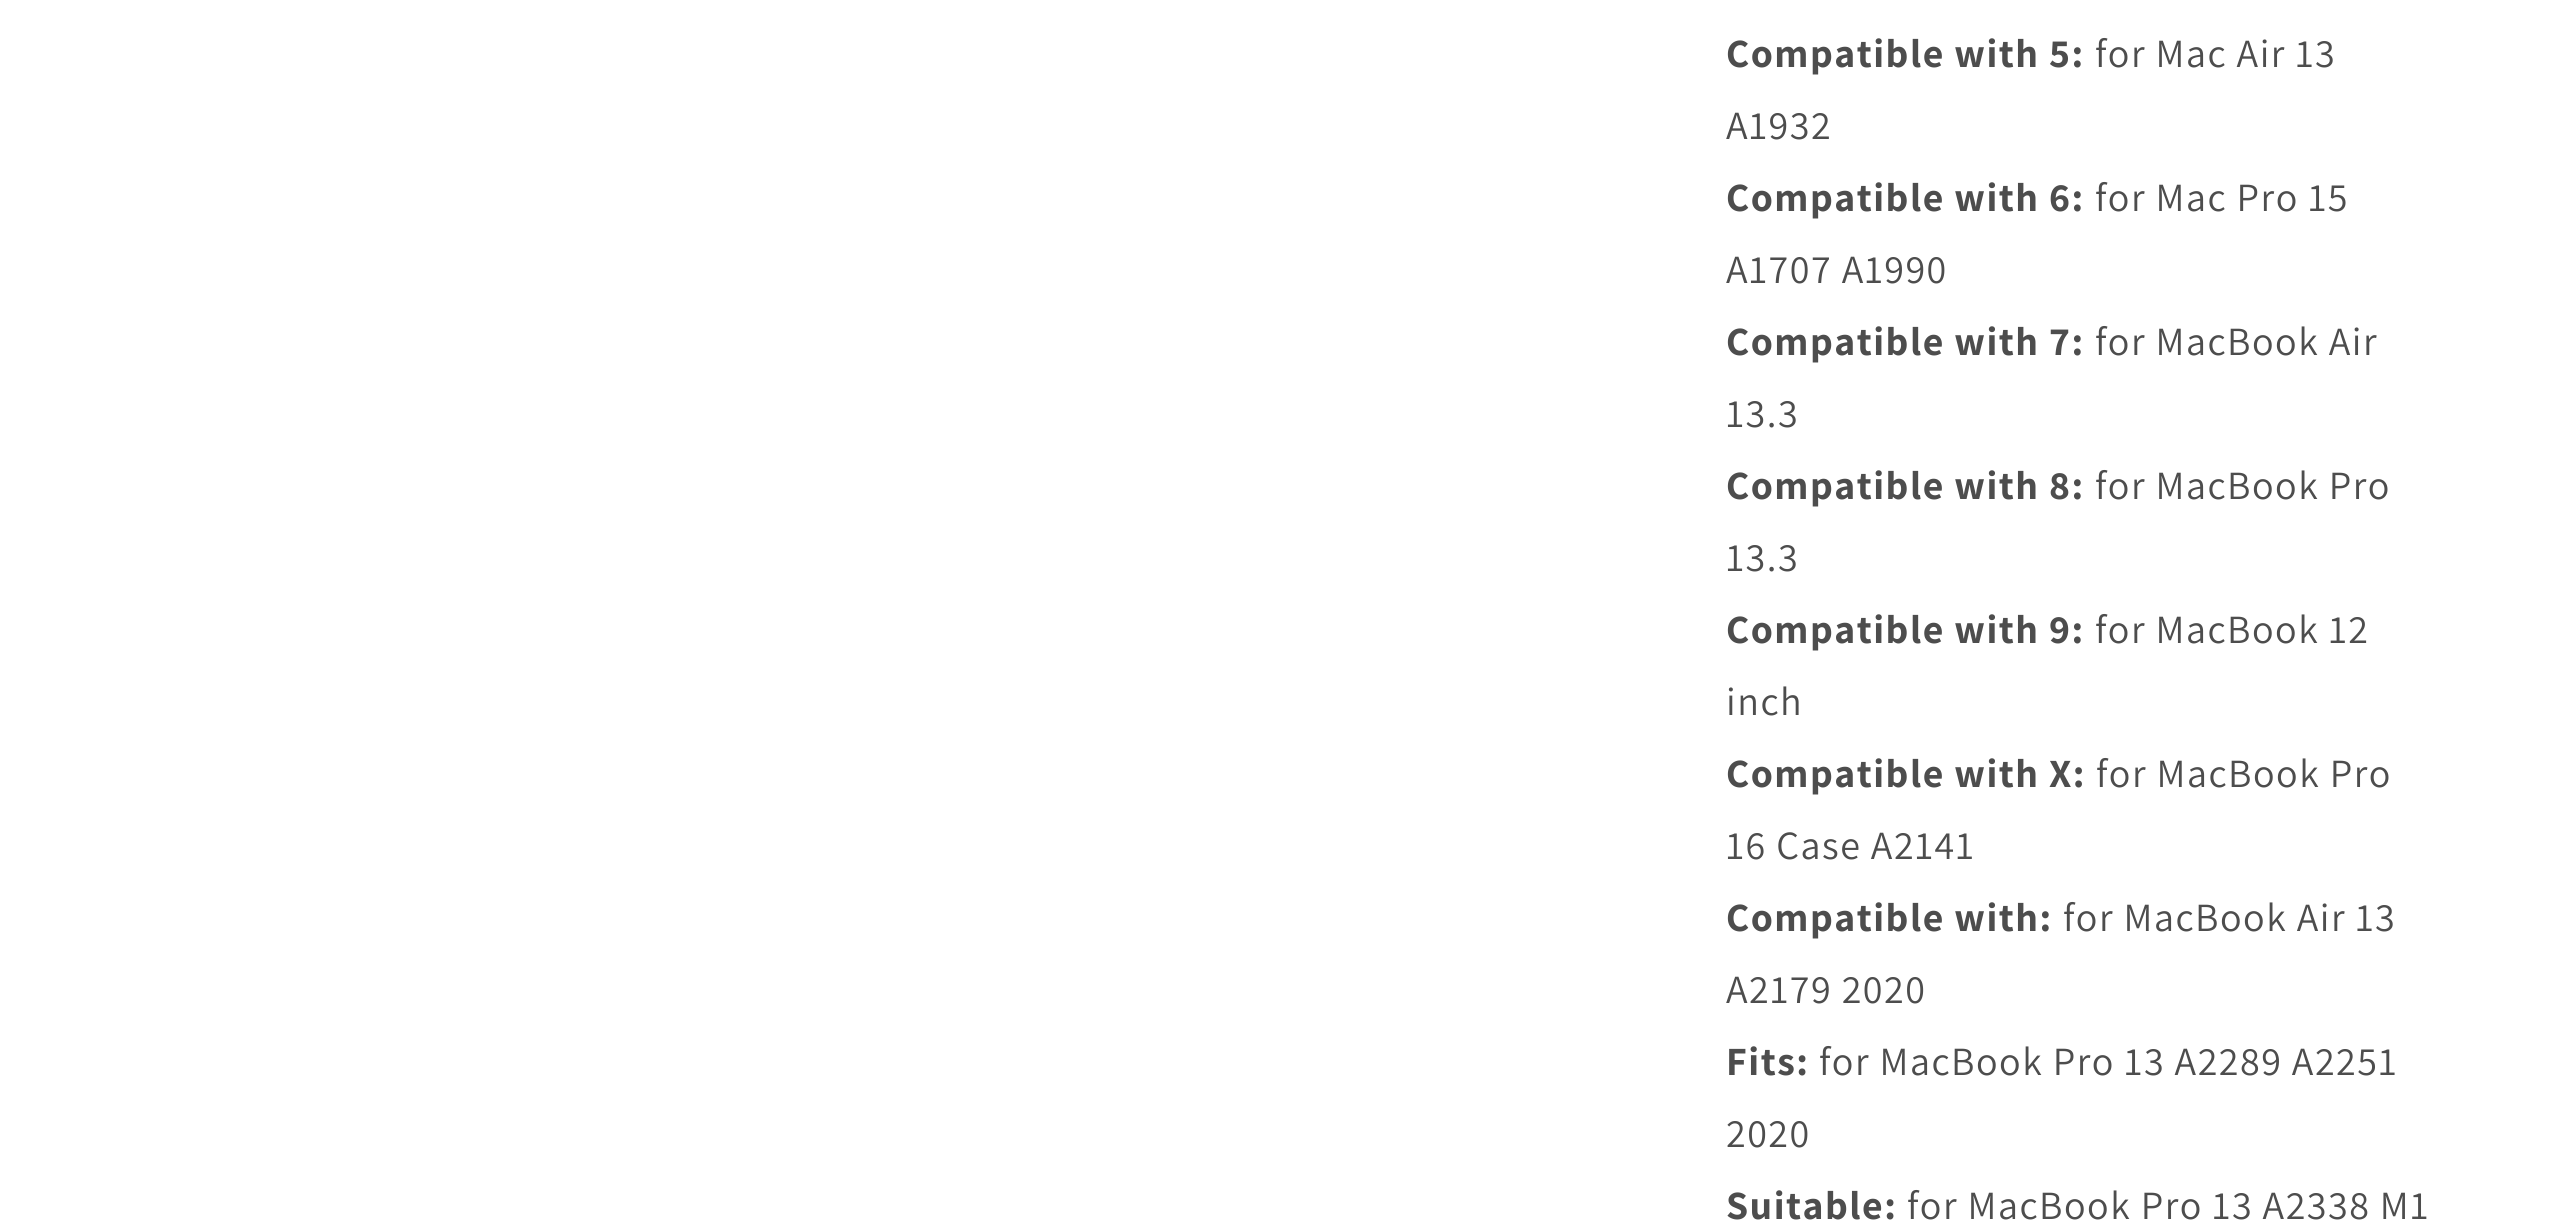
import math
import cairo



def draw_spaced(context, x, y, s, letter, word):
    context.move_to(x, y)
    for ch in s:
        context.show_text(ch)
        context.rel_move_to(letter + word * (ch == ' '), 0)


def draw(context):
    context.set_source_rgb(1, 1, 1)
    context.paint()
    context.select_font_face("Assistant", cairo.FontSlant.NORMAL, cairo.FontWeight.BOLD)
    context.set_font_size(40)
    context.set_source_rgb(77 / 255, 77 / 255, 77 / 255)
    draw_spaced(context, 1726, 67, "Compatible with 5:", 1.5, 0)
    context.select_font_face("Assistant")
    draw_spaced(context, 2095, 67, "for Mac Air 13", 1.5, 0)
    draw_spaced(context, 1726, 139, "A1932", 1.5, 0)
    context.select_font_face("Assistant", cairo.FontSlant.NORMAL, cairo.FontWeight.BOLD)
    draw_spaced(context, 1726, 211, "Compatible with 6:", 1.5, 0)
    context.select_font_face("Assistant")
    draw_spaced(context, 2095, 211, "for Mac Pro 15", 1.5, 0)
    draw_spaced(context, 1726, 283, "A1707 A1990", 1.5, 0)
    context.select_font_face("Assistant", cairo.FontSlant.NORMAL, cairo.FontWeight.BOLD)
    draw_spaced(context, 1726, 355, "Compatible with 7:", 1.5, 0)
    context.select_font_face("Assistant")
    draw_spaced(context, 2095, 355, "for MacBook Air", 1.5, 0)
    draw_spaced(context, 1726, 427, "13.3", 1.5, 0)
    context.select_font_face("Assistant", cairo.FontSlant.NORMAL, cairo.FontWeight.BOLD)
    draw_spaced(context, 1726, 499, "Compatible with 8:", 1.5, 0)
    context.select_font_face("Assistant")
    draw_spaced(context, 2095, 499, "for MacBook Pro", 1.5, 0)
    draw_spaced(context, 1726, 571, "13.3", 1.5, 0)
    context.select_font_face("Assistant", cairo.FontSlant.NORMAL, cairo.FontWeight.BOLD)
    draw_spaced(context, 1726, 643, "Compatible with 9:", 1.5, 0)
    context.select_font_face("Assistant")
    draw_spaced(context, 2095, 643, "for MacBook 12", 1.5, 0)
    draw_spaced(context, 1726, 715, "inch", 1.5, 0)
    context.select_font_face("Assistant", cairo.FontSlant.NORMAL, cairo.FontWeight.BOLD)
    draw_spaced(context, 1726, 787, "Compatible with X:", 1.5, 0)
    context.select_font_face("Assistant")
    draw_spaced(context, 2096, 787, "for MacBook Pro", 1.5, 0)
    draw_spaced(context, 1726, 859, "16 Case A2141", 1.5, 0)
    context.select_font_face("Assistant", cairo.FontSlant.NORMAL, cairo.FontWeight.BOLD)
    draw_spaced(context, 1726, 931, "Compatible with:", 1.5, 0)
    context.select_font_face("Assistant")
    draw_spaced(context, 2063, 931, "for MacBook Air 13", 1.5, 0)
    draw_spaced(context, 1726, 1003, "A2179 2020", 1.5, 0)
    context.select_font_face("Assistant", cairo.FontSlant.NORMAL, cairo.FontWeight.BOLD)
    draw_spaced(context, 1726, 1075, "Fits:", 1.5, 0)
    context.select_font_face("Assistant")
    draw_spaced(context, 1819, 1075, "for MacBook Pro 13 A2289 A2251", 1.5, 0)
    draw_spaced(context, 1726, 1147, "2020", 1.5, 0)
    context.select_font_face("Assistant", cairo.FontSlant.NORMAL, cairo.FontWeight.BOLD)
    draw_spaced(context, 1726, 1219, "Suitable:", 1.5, 0)
    context.select_font_face("Assistant")
    draw_spaced(context, 1907, 1219, "for MacBook Pro 13 A2338 M1", 1.5, 0)


surface = cairo.ImageSurface(cairo.Format.RGB24, 2559, 1220)
context = cairo.Context(surface)
options = cairo.FontOptions()
options.set_hint_metrics(cairo.HintMetrics.OFF)
options.set_hint_style(cairo.HintStyle.NONE)
context.set_font_options(options)
context.set_miter_limit(4)
draw(context)
surface.write_to_png("out.png")
